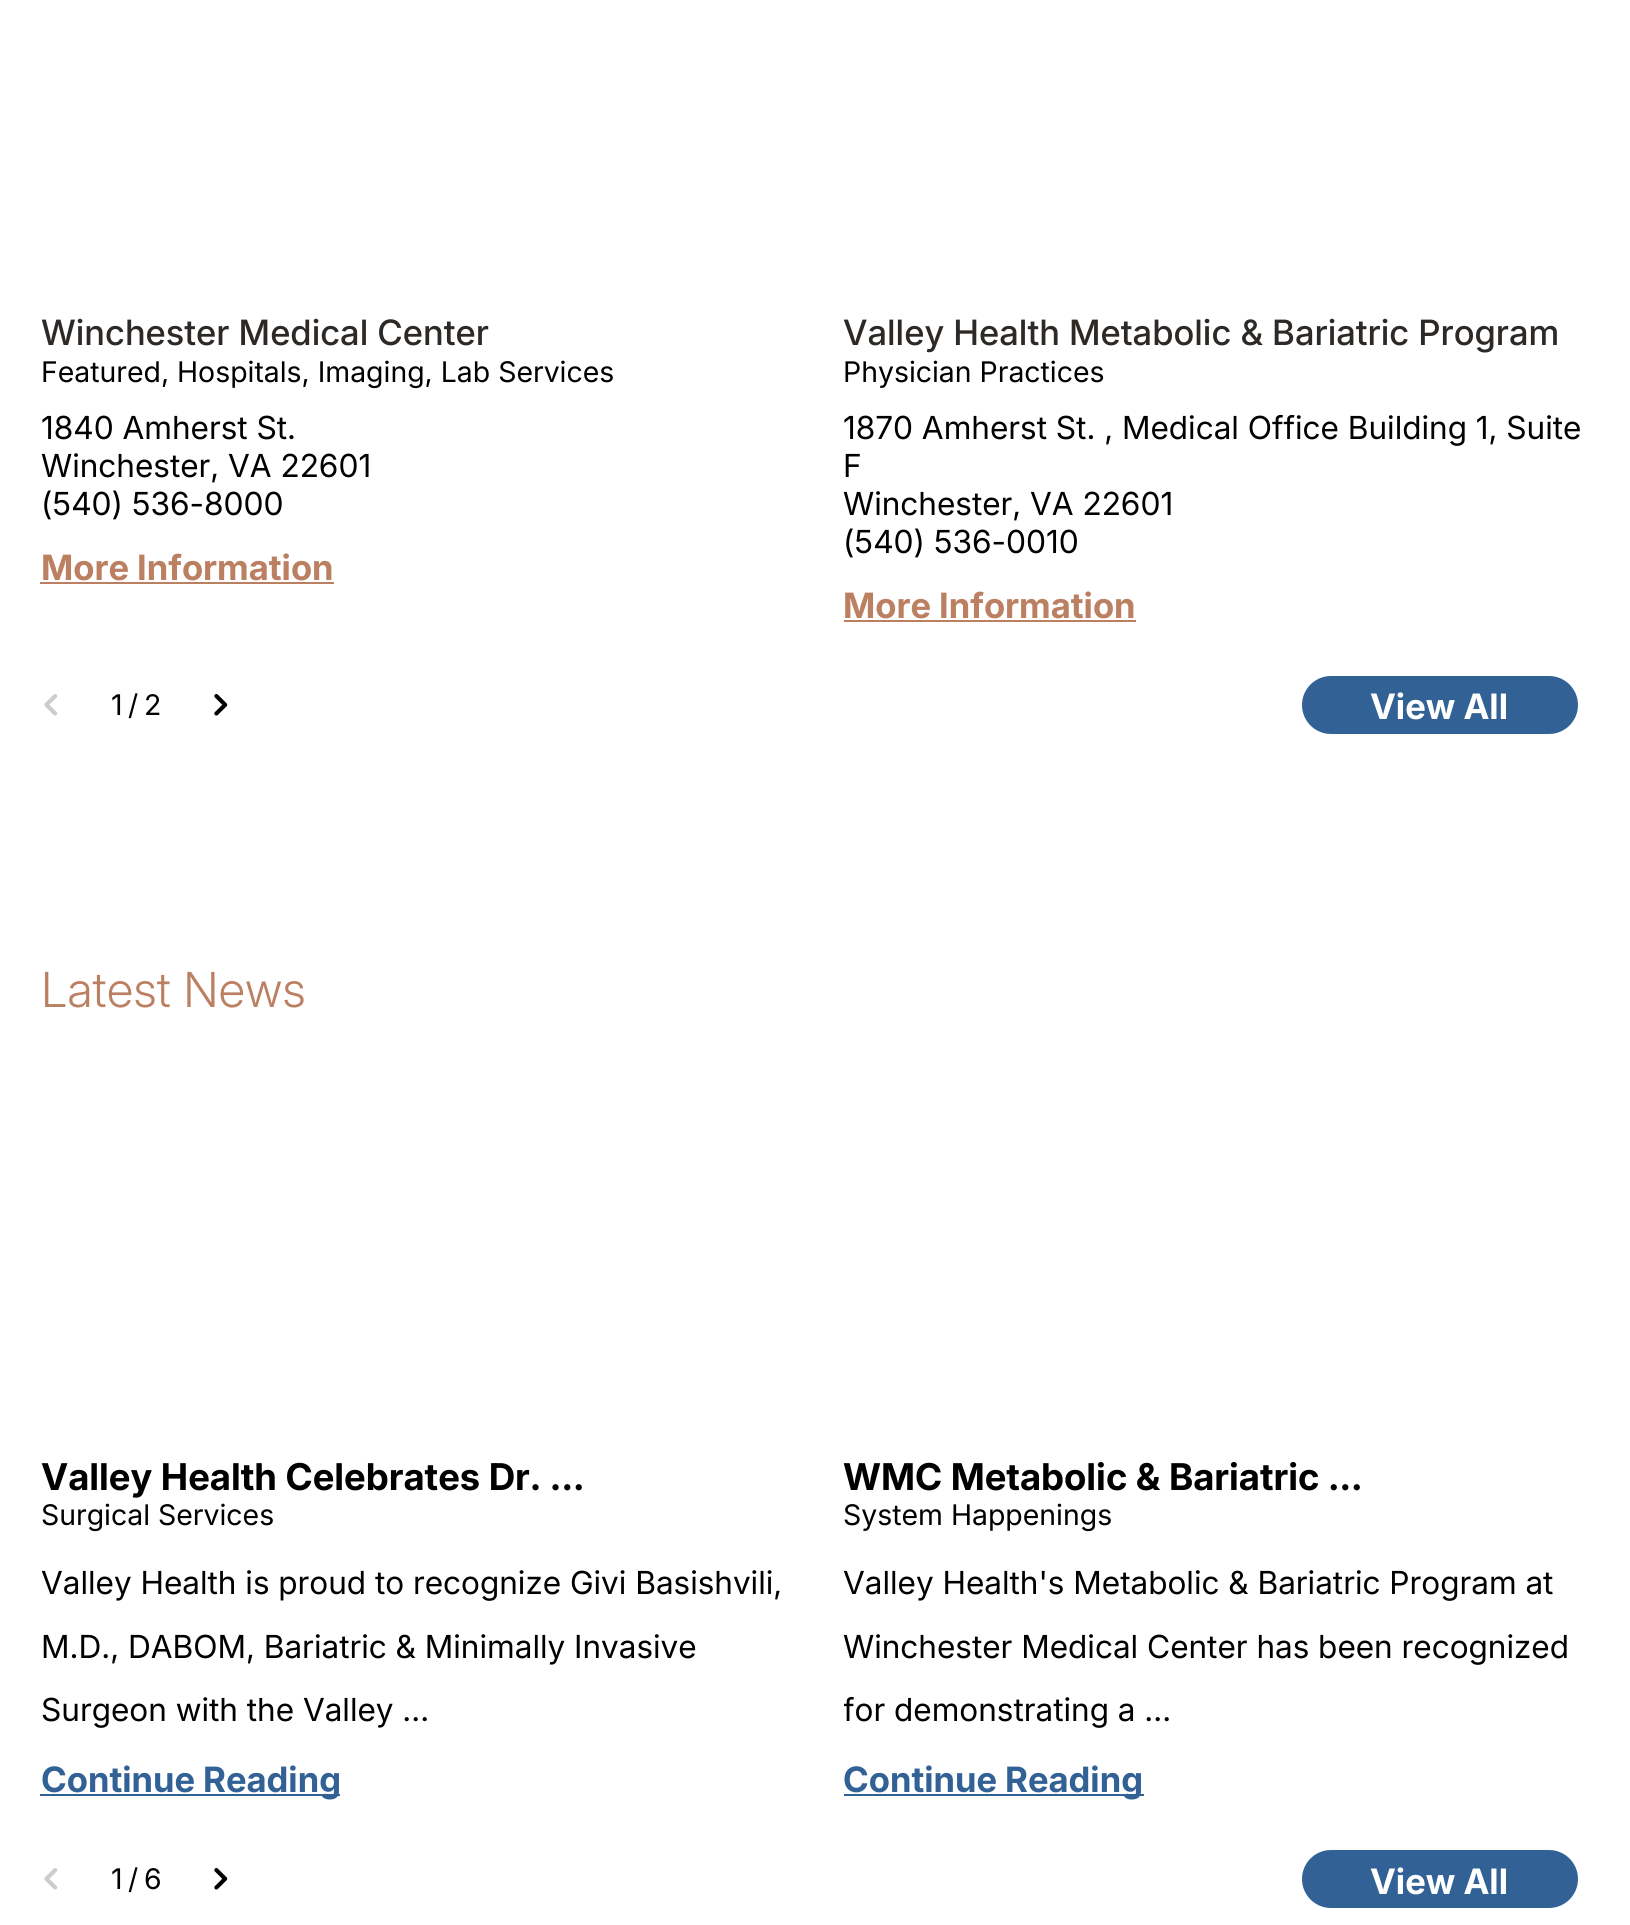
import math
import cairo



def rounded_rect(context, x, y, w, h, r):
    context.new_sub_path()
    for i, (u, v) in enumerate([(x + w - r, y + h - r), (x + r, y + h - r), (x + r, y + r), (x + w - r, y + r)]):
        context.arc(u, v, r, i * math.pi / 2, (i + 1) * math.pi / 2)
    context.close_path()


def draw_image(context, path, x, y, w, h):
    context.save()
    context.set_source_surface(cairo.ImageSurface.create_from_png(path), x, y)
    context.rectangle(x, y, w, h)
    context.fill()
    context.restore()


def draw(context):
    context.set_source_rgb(1, 1, 1)
    context.paint()
    context.set_source_rgb(187 / 255, 127 / 255, 98 / 255)
    context.rectangle(40, 582, 294, 2)
    context.fill()
    context.rectangle(844, 620, 292, 2)
    context.fill()
    draw_image(context, "images/1.png", 44, 694, 14, 22)
    draw_image(context, "images/2.png", 214, 694, 14, 22)
    context.set_source_rgb(50 / 255, 98 / 255, 149 / 255)
    rounded_rect(context, 1304, 678, 272, 54, 27)
    context.fill_preserve()
    context.set_line_width(4)
    context.stroke()
    context.rectangle(40, 1794, 300, 2)
    context.fill()
    context.rectangle(844, 1794, 300, 2)
    context.fill()
    draw_image(context, "images/1.png", 44, 1868, 14, 22)
    draw_image(context, "images/2.png", 214, 1868, 14, 22)
    rounded_rect(context, 1304, 1852, 272, 54, 27)
    context.fill_preserve()
    context.stroke()
    context.select_font_face("Inter Medium")
    context.set_font_size(34.9)
    context.set_source_rgb(45 / 255, 41 / 255, 38 / 255)
    context.move_to(41, 345)
    context.show_text("Winchester Medical Center")
    context.select_font_face("Inter")
    context.set_font_size(28.4)
    context.set_source_rgb(0, 0, 0)
    context.move_to(41, 382)
    context.show_text("Featured,")
    context.move_to(177, 382)
    context.show_text("Hospitals, Imaging, Lab Services")
    context.select_font_face("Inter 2")
    context.set_font_size(31.75)
    context.move_to(41, 439)
    context.show_text("1840 Amherst St.")
    context.move_to(41, 477)
    context.show_text("Winchester, VA 22601")
    context.move_to(41, 515)
    context.show_text("(540) 536-8000")
    context.select_font_face("Inter", cairo.FontSlant.NORMAL, cairo.FontWeight.BOLD)
    context.set_font_size(34.9)
    context.set_source_rgb(187 / 255, 127 / 255, 98 / 255)
    context.move_to(41, 580)
    context.show_text("More Information")
    context.select_font_face("Inter Medium")
    context.set_source_rgb(45 / 255, 41 / 255, 38 / 255)
    context.move_to(843, 345)
    context.show_text("Valley Health Metabolic & Bariatric Program")
    context.select_font_face("Inter")
    context.set_font_size(28.4)
    context.set_source_rgb(0, 0, 0)
    context.move_to(843, 382)
    context.show_text("Physician Practices")
    context.select_font_face("Inter 2")
    context.set_font_size(31.75)
    context.move_to(843, 439)
    context.show_text("1870 Amherst St. , Medical Office Building 1, Suite")
    context.move_to(843, 477)
    context.show_text("F")
    context.move_to(843, 515)
    context.show_text("Winchester, VA 22601")
    context.move_to(843, 553)
    context.show_text("(540) 536-0010")
    context.select_font_face("Inter", cairo.FontSlant.NORMAL, cairo.FontWeight.BOLD)
    context.set_font_size(34.9)
    context.set_source_rgb(187 / 255, 127 / 255, 98 / 255)
    context.move_to(843, 618)
    context.show_text("More Information")
    context.select_font_face("Inter")
    context.set_font_size(28.4)
    context.set_source_rgb(0, 0, 0)
    context.move_to(111, 715)
    context.show_text("1")
    context.move_to(128, 715)
    context.show_text("/")
    context.move_to(144, 715)
    context.show_text("2")
    context.select_font_face("Inter 2", cairo.FontSlant.NORMAL, cairo.FontWeight.BOLD)
    context.set_font_size(35)
    context.set_source_rgb(1, 1, 1)
    context.move_to(1370, 719)
    context.show_text("View All")
    context.select_font_face("Inter Light")
    context.set_font_size(48.25)
    context.set_source_rgb(187 / 255, 127 / 255, 98 / 255)
    context.move_to(41, 1007)
    context.show_text("Latest News")
    context.select_font_face("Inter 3", cairo.FontSlant.NORMAL, cairo.FontWeight.BOLD)
    context.set_font_size(36.9)
    context.set_source_rgb(0, 0, 0)
    context.move_to(41, 1490)
    context.show_text("Valley Health Celebrates Dr. ...")
    context.select_font_face("Inter")
    context.set_font_size(28.4)
    context.move_to(41, 1525)
    context.show_text("Surgical Services")
    context.select_font_face("Inter 2")
    context.set_font_size(31.75)
    context.move_to(41, 1594)
    context.show_text("Valley Health is proud to recognize Givi Basishvili,")
    context.move_to(41, 1658)
    context.show_text("M.D., DABOM, Bariatric & Minimally Invasive")
    context.move_to(41, 1721)
    context.show_text("Surgeon with the Valley ...")
    context.select_font_face("Inter", cairo.FontSlant.NORMAL, cairo.FontWeight.BOLD)
    context.set_font_size(34.9)
    context.set_source_rgb(50 / 255, 98 / 255, 149 / 255)
    context.move_to(41, 1792)
    context.show_text("Continue Reading")
    context.select_font_face("Inter 3", cairo.FontSlant.NORMAL, cairo.FontWeight.BOLD)
    context.set_font_size(36.9)
    context.set_source_rgb(0, 0, 0)
    context.move_to(843, 1490)
    context.show_text("WMC Metabolic & Bariatric ...")
    context.select_font_face("Inter")
    context.set_font_size(28.4)
    context.move_to(843, 1525)
    context.show_text("System Happenings")
    context.select_font_face("Inter 2")
    context.set_font_size(31.75)
    context.move_to(843, 1594)
    context.show_text("Valley Health's Metabolic & Bariatric Program at")
    context.move_to(843, 1658)
    context.show_text("Winchester Medical Center has been recognized")
    context.save()
    context.rectangle(844, 1050, 746, 760)
    context.clip()
    context.move_to(843, 1721)
    context.show_text("for demonstrating a ...")
    context.restore()
    context.select_font_face("Inter", cairo.FontSlant.NORMAL, cairo.FontWeight.BOLD)
    context.set_font_size(34.9)
    context.set_source_rgb(50 / 255, 98 / 255, 149 / 255)
    context.move_to(843, 1792)
    context.show_text("Continue Reading")
    context.select_font_face("Inter")
    context.set_font_size(28.4)
    context.set_source_rgb(0, 0, 0)
    context.move_to(111, 1889)
    context.show_text("1")
    context.move_to(128, 1889)
    context.show_text("/")
    context.move_to(144, 1889)
    context.show_text("6")
    context.select_font_face("Inter 2", cairo.FontSlant.NORMAL, cairo.FontWeight.BOLD)
    context.set_font_size(35)
    context.set_source_rgb(1, 1, 1)
    context.move_to(1370, 1894)
    context.show_text("View All")


surface = cairo.ImageSurface(cairo.Format.RGB24, 1630, 1925)
context = cairo.Context(surface)
options = cairo.FontOptions()
options.set_hint_metrics(cairo.HintMetrics.OFF)
options.set_hint_style(cairo.HintStyle.NONE)
context.set_font_options(options)
context.set_miter_limit(4)
draw(context)
surface.write_to_png("out.png")
